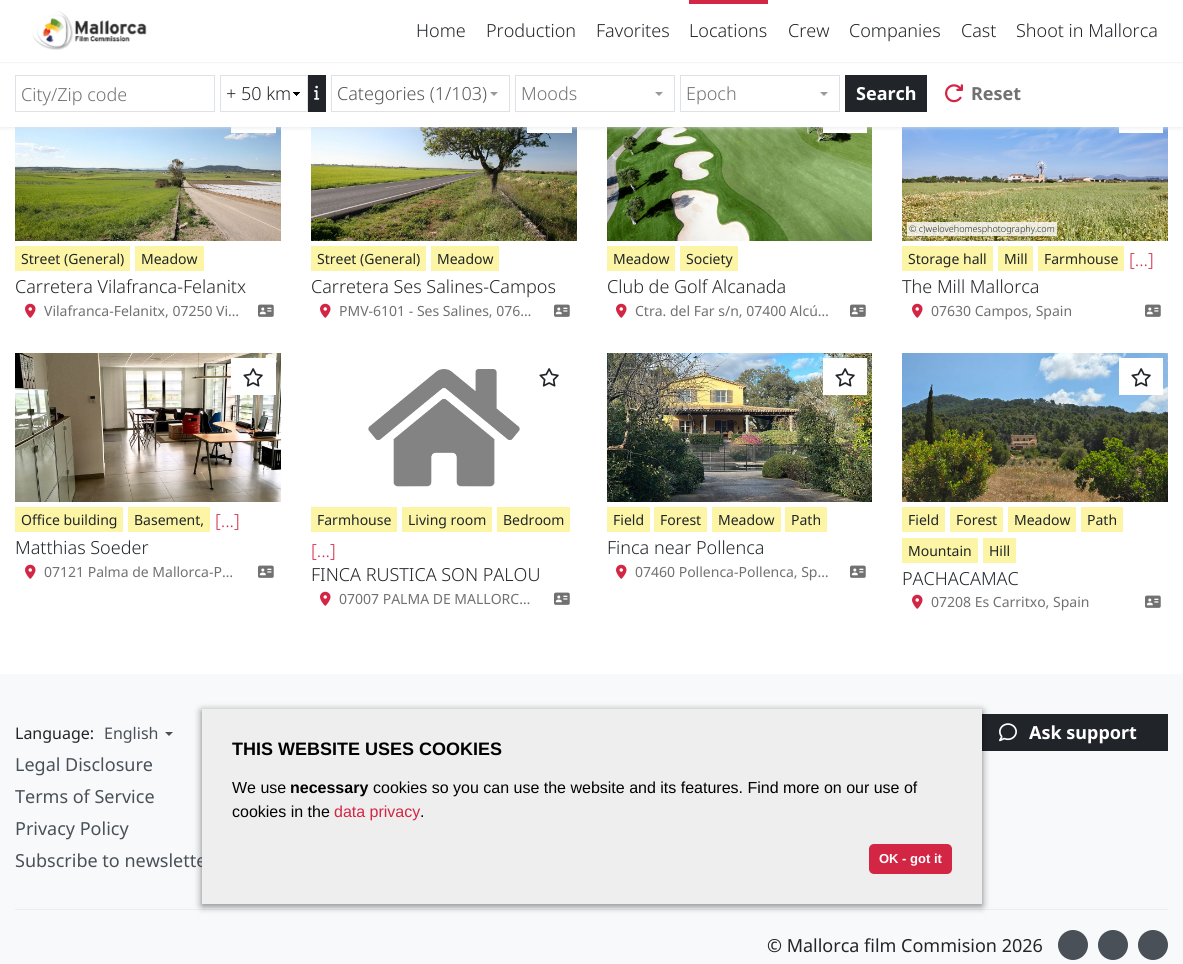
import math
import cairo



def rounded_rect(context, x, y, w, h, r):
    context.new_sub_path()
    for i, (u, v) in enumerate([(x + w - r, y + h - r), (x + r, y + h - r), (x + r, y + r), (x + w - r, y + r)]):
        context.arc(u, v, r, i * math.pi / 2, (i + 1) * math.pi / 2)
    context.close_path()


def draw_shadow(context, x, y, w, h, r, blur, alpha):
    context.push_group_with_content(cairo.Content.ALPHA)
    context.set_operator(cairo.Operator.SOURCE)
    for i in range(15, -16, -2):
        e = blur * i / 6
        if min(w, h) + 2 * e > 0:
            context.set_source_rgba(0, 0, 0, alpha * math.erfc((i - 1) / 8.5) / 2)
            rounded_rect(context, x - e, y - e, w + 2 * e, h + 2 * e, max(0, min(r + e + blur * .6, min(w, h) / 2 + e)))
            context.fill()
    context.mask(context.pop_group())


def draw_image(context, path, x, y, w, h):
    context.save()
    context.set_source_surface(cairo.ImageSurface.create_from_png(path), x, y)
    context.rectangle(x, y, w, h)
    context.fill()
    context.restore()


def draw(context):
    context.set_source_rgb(1, 1, 1)
    context.paint()
    draw_image(context, "images/5.png", 15, 127, 266, 114)
    context.set_source_rgb(1, 1, 1)
    context.rectangle(231, 127, 45, 6)
    context.fill()
    draw_image(context, "images/8.png", 311, 127, 266, 114)
    context.rectangle(527, 127, 45, 6)
    context.fill()
    draw_image(context, "images/9.png", 607, 127, 265, 114)
    context.rectangle(823, 127, 44, 6)
    context.fill()
    draw_image(context, "images/10.png", 902, 127, 266, 114)
    context.rectangle(1119, 127, 44, 6)
    context.fill()
    context.set_source_rgb(222 / 255, 226 / 255, 230 / 255)
    draw_shadow(context, 0, 60, 1183, 67, 0, 2.5, 1)
    context.set_source_rgb(1, 1, 1)
    context.rectangle(0, 62, 1183, 65)
    context.fill()
    context.set_source_rgb(222 / 255, 226 / 255, 230 / 255)
    draw_shadow(context, 0, 0, 1183, 62, 0, 1, 1)
    context.set_source_rgb(1, 1, 1)
    context.rectangle(0, 0, 1183, 62)
    context.fill()
    draw_image(context, "images/1.png", 32, 11, 115, 39)
    context.set_source_rgb(211 / 255, 38 / 255, 68 / 255)
    context.rectangle(689, 0, 79, 4)
    context.fill()
    context.rectangle(15.5, 75.5, 199, 36)
    context.set_source_rgb(222 / 255, 226 / 255, 230 / 255)
    context.set_line_width(1)
    context.stroke()
    draw_image(context, "images/2.png", 293, 92, 7, 4)
    context.rectangle(220.5, 75.5, 87, 36)
    context.stroke()
    context.set_source_rgb(33 / 255, 37 / 255, 41 / 255)
    context.rectangle(308, 75, 18, 37)
    context.fill()
    draw_image(context, "images/3.png", 314, 85, 6, 15)
    context.rectangle(331.5, 75.5, 178, 36)
    context.set_source_rgb(222 / 255, 226 / 255, 230 / 255)
    context.stroke()
    context.set_source_rgb(153 / 255, 153 / 255, 153 / 255)
    context.new_path()
    context.move_to(490, 92)
    context.line_to(498, 92)
    context.line_to(494, 96)
    context.close_path()
    context.fill()
    context.rectangle(515.5, 75.5, 159, 36)
    context.set_source_rgb(222 / 255, 226 / 255, 230 / 255)
    context.stroke()
    context.set_source_rgb(153 / 255, 153 / 255, 153 / 255)
    context.new_path()
    context.move_to(655, 92)
    context.line_to(663, 92)
    context.line_to(659, 96)
    context.close_path()
    context.fill()
    context.rectangle(680.5, 75.5, 159, 36)
    context.set_source_rgb(222 / 255, 226 / 255, 230 / 255)
    context.stroke()
    context.set_source_rgb(153 / 255, 153 / 255, 153 / 255)
    context.new_path()
    context.move_to(820, 92)
    context.line_to(828, 92)
    context.line_to(824, 96)
    context.close_path()
    context.fill()
    context.set_source_rgb(33 / 255, 37 / 255, 41 / 255)
    context.rectangle(845, 75, 82, 37)
    context.fill()
    draw_image(context, "images/4.png", 945, 84, 18, 19)
    context.set_source_rgb(252 / 255, 245 / 255, 165 / 255)
    context.rectangle(15, 246, 115, 25)
    context.fill()
    context.rectangle(135, 246, 69, 25)
    context.fill()
    draw_image(context, "images/6.png", 25, 303, 11, 15)
    draw_image(context, "images/7.png", 258, 304, 16, 13)
    context.rectangle(311, 246, 115, 25)
    context.fill()
    context.rectangle(431, 246, 68, 25)
    context.fill()
    draw_image(context, "images/6.png", 320, 303, 11, 15)
    draw_image(context, "images/7.png", 554, 304, 16, 13)
    context.rectangle(607, 246, 68, 25)
    context.fill()
    context.rectangle(680, 246, 58, 25)
    context.fill()
    draw_image(context, "images/6.png", 616, 303, 11, 15)
    draw_image(context, "images/7.png", 850, 304, 16, 13)
    context.set_source_rgba(1, 1, 1, 0.8)
    context.rectangle(907, 222, 150, 14)
    context.fill()
    context.set_source_rgb(252 / 255, 245 / 255, 165 / 255)
    context.rectangle(902, 246, 91, 25)
    context.fill()
    context.rectangle(998, 246, 35, 25)
    context.fill()
    context.rectangle(1038, 246, 86, 25)
    context.fill()
    draw_image(context, "images/6.png", 912, 303, 11, 15)
    draw_image(context, "images/7.png", 1145, 304, 16, 13)
    draw_image(context, "images/11.png", 15, 353, 266, 149)
    context.set_source_rgb(1, 1, 1)
    context.rectangle(231, 358, 45, 37)
    context.fill()
    draw_image(context, "images/12.png", 243, 368, 20, 19)
    context.set_source_rgb(252 / 255, 245 / 255, 165 / 255)
    context.rectangle(15, 507, 108, 25)
    context.fill()
    context.rectangle(128, 507, 82, 25)
    context.fill()
    draw_image(context, "images/6.png", 25, 564, 11, 15)
    draw_image(context, "images/7.png", 258, 565, 16, 13)
    draw_image(context, "images/13.png", 368, 369, 152, 118)
    draw_image(context, "images/12.png", 539, 368, 20, 19)
    context.rectangle(311, 507, 86, 25)
    context.fill()
    context.rectangle(402, 507, 90, 25)
    context.fill()
    context.rectangle(497, 507, 73, 25)
    context.fill()
    draw_image(context, "images/6.png", 320, 591, 11, 15)
    draw_image(context, "images/7.png", 554, 592, 16, 13)
    draw_image(context, "images/14.png", 607, 353, 265, 149)
    context.set_source_rgb(1, 1, 1)
    context.rectangle(823, 358, 44, 37)
    context.fill()
    draw_image(context, "images/12.png", 835, 368, 20, 19)
    context.set_source_rgb(252 / 255, 245 / 255, 165 / 255)
    context.rectangle(607, 507, 43, 25)
    context.fill()
    context.rectangle(654, 507, 53, 25)
    context.fill()
    context.rectangle(712, 507, 69, 25)
    context.fill()
    context.rectangle(785, 507, 42, 25)
    context.fill()
    draw_image(context, "images/6.png", 616, 564, 11, 15)
    draw_image(context, "images/7.png", 850, 565, 16, 13)
    draw_image(context, "images/15.png", 902, 353, 266, 149)
    context.set_source_rgb(1, 1, 1)
    context.rectangle(1119, 358, 44, 37)
    context.fill()
    draw_image(context, "images/12.png", 1131, 368, 20, 19)
    context.set_source_rgb(252 / 255, 245 / 255, 165 / 255)
    context.rectangle(902, 507, 43, 25)
    context.fill()
    context.rectangle(950, 507, 53, 25)
    context.fill()
    context.rectangle(1008, 507, 68, 25)
    context.fill()
    context.rectangle(1081, 507, 42, 25)
    context.fill()
    context.rectangle(902, 538, 76, 25)
    context.fill()
    context.rectangle(983, 538, 33, 25)
    context.fill()
    draw_image(context, "images/6.png", 912, 594, 11, 15)
    draw_image(context, "images/7.png", 1145, 595, 16, 13)
    context.set_source_rgb(248 / 255, 249 / 255, 250 / 255)
    context.rectangle(0, 674, 1183, 290)
    context.fill()
    context.set_source_rgb(73 / 255, 80 / 255, 87 / 255)
    context.new_path()
    context.move_to(165, 732)
    context.line_to(173, 732)
    context.line_to(169, 736)
    context.close_path()
    context.fill()
    context.set_source_rgb(33 / 255, 37 / 255, 41 / 255)
    context.rectangle(982, 714, 186, 37)
    context.fill()
    draw_image(context, "images/16.png", 999, 723, 18, 19)
    context.set_source_rgb(238 / 255, 238 / 255, 238 / 255)
    context.rectangle(15, 909, 1153, 1)
    context.fill()
    context.set_source_rgb(73 / 255, 80 / 255, 87 / 255)
    context.arc(1073, 945, 15, 0, 2 * math.pi)
    context.fill()
    context.arc(1113, 945, 15, 0, 2 * math.pi)
    context.fill()
    context.arc(1153, 945, 15, 0, 2 * math.pi)
    context.fill()
    context.set_source_rgb(0, 0, 0)
    draw_shadow(context, 202, 711, 780, 195, 0, 4, 0.5)
    context.select_font_face("Noto Sans Light")
    context.set_font_size(18)
    context.set_source_rgb(33 / 255, 37 / 255, 41 / 255)
    context.move_to(416, 37)
    context.show_text("Home")
    context.move_to(486, 37)
    context.show_text("Production")
    context.move_to(596, 37)
    context.show_text("Favorites")
    context.move_to(689, 37)
    context.show_text("Locations")
    context.move_to(788, 37)
    context.show_text("Crew")
    context.move_to(849, 37)
    context.show_text("Companies")
    context.move_to(961, 37)
    context.show_text("Cast")
    context.move_to(1016, 37)
    context.show_text("Shoot in Mallorca")
    context.set_source_rgb(113 / 255, 113 / 255, 113 / 255)
    context.move_to(21, 101)
    context.show_text("City/Zip code")
    context.set_source_rgb(33 / 255, 37 / 255, 41 / 255)
    context.move_to(226, 100)
    context.show_text("+ 50 km")
    context.set_source_rgb(85 / 255, 85 / 255, 85 / 255)
    context.move_to(337, 100)
    context.show_text("Categories (1/103)")
    context.set_source_rgb(113 / 255, 113 / 255, 113 / 255)
    context.move_to(521, 100)
    context.show_text("Moods")
    context.move_to(686, 100)
    context.show_text("Epoch")
    context.select_font_face("Noto Sans", cairo.FontSlant.NORMAL, cairo.FontWeight.BOLD)
    context.set_source_rgb(1, 1, 1)
    context.move_to(856, 100)
    context.show_text("Search")
    context.set_source_rgb(113 / 255, 113 / 255, 113 / 255)
    context.move_to(971, 100)
    context.show_text("Reset")
    context.select_font_face("Noto Sans")
    context.set_font_size(14)
    context.set_source_rgb(33 / 255, 37 / 255, 41 / 255)
    context.move_to(21, 264)
    context.show_text("Street (General)")
    context.move_to(141, 264)
    context.show_text("Meadow")
    context.select_font_face("Noto Sans Light")
    context.set_font_size(18)
    context.move_to(15, 293)
    context.show_text("Carretera Vilafranca-Felanitx")
    context.select_font_face("Noto Sans")
    context.set_font_size(14)
    context.set_source_rgb(113 / 255, 113 / 255, 113 / 255)
    context.move_to(44, 316)
    context.show_text("Vilafranca-Felanitx, 07250 Vi…")
    context.set_source_rgb(33 / 255, 37 / 255, 41 / 255)
    context.move_to(317, 264)
    context.show_text("Street (General)")
    context.move_to(437, 264)
    context.show_text("Meadow")
    context.select_font_face("Noto Sans Light")
    context.set_font_size(18)
    context.move_to(311, 293)
    context.show_text("Carretera Ses Salines-Campos")
    context.select_font_face("Noto Sans")
    context.set_font_size(14)
    context.set_source_rgb(113 / 255, 113 / 255, 113 / 255)
    context.move_to(339, 316)
    context.show_text("PMV-6101 - Ses Salines, 076…")
    context.set_source_rgb(33 / 255, 37 / 255, 41 / 255)
    context.move_to(613, 264)
    context.show_text("Meadow")
    context.move_to(686, 264)
    context.show_text("Society")
    context.select_font_face("Noto Sans Light")
    context.set_font_size(18)
    context.move_to(607, 293)
    context.show_text("Club de Golf Alcanada")
    context.select_font_face("Noto Sans")
    context.set_font_size(14)
    context.set_source_rgb(113 / 255, 113 / 255, 113 / 255)
    context.move_to(635, 316)
    context.show_text("Ctra. del Far s/n, 07400 Alcú…")
    context.select_font_face("Noto Sans Light")
    context.set_font_size(9)
    context.set_source_rgb(33 / 255, 37 / 255, 41 / 255)
    context.move_to(909, 232)
    context.show_text("© c)welovehomesphotography.com")
    context.select_font_face("Noto Sans")
    context.set_font_size(14)
    context.move_to(908, 264)
    context.show_text("Storage hall")
    context.move_to(1004, 264)
    context.show_text("Mill")
    context.move_to(1044, 264)
    context.show_text("Farmhouse")
    context.select_font_face("Noto Sans Light")
    context.set_font_size(18)
    context.set_source_rgb(211 / 255, 38 / 255, 68 / 255)
    context.move_to(1129, 266)
    context.show_text("[...]")
    context.set_source_rgb(33 / 255, 37 / 255, 41 / 255)
    context.move_to(902, 293)
    context.show_text("The Mill Mallorca")
    context.select_font_face("Noto Sans")
    context.set_font_size(14)
    context.set_source_rgb(113 / 255, 113 / 255, 113 / 255)
    context.move_to(931, 316)
    context.show_text("07630 Campos, Spain")
    context.set_source_rgb(33 / 255, 37 / 255, 41 / 255)
    context.move_to(21, 525)
    context.show_text("Office building")
    context.move_to(134, 525)
    context.show_text("Basement,")
    context.select_font_face("Noto Sans Light")
    context.set_font_size(18)
    context.set_source_rgb(211 / 255, 38 / 255, 68 / 255)
    context.move_to(215, 527)
    context.show_text("[...]")
    context.set_source_rgb(33 / 255, 37 / 255, 41 / 255)
    context.move_to(15, 554)
    context.show_text("Matthias Soeder")
    context.select_font_face("Noto Sans")
    context.set_font_size(14)
    context.set_source_rgb(113 / 255, 113 / 255, 113 / 255)
    context.move_to(44, 577)
    context.show_text("07121 Palma de Mallorca-P…")
    context.set_source_rgb(33 / 255, 37 / 255, 41 / 255)
    context.move_to(317, 525)
    context.show_text("Farmhouse")
    context.move_to(408, 525)
    context.show_text("Living room")
    context.move_to(503, 525)
    context.show_text("Bedroom")
    context.select_font_face("Noto Sans Light")
    context.set_font_size(18)
    context.set_source_rgb(211 / 255, 38 / 255, 68 / 255)
    context.move_to(311, 557)
    context.show_text("[...]")
    context.set_source_rgb(33 / 255, 37 / 255, 41 / 255)
    context.move_to(311, 581)
    context.show_text("FINCA RUSTICA SON PALOU")
    context.select_font_face("Noto Sans")
    context.set_font_size(14)
    context.set_source_rgb(113 / 255, 113 / 255, 113 / 255)
    context.move_to(339, 604)
    context.show_text("07007 PALMA DE MALLORC…")
    context.set_source_rgb(33 / 255, 37 / 255, 41 / 255)
    context.move_to(613, 525)
    context.show_text("Field")
    context.move_to(660, 525)
    context.show_text("Forest")
    context.move_to(718, 525)
    context.show_text("Meadow")
    context.move_to(791, 525)
    context.show_text("Path")
    context.select_font_face("Noto Sans Light")
    context.set_font_size(18)
    context.move_to(607, 554)
    context.show_text("Finca near Pollenca")
    context.select_font_face("Noto Sans")
    context.set_font_size(14)
    context.set_source_rgb(113 / 255, 113 / 255, 113 / 255)
    context.move_to(635, 577)
    context.show_text("07460 Pollenca-Pollenca, Sp…")
    context.set_source_rgb(33 / 255, 37 / 255, 41 / 255)
    context.move_to(908, 525)
    context.show_text("Field")
    context.move_to(956, 525)
    context.show_text("Forest")
    context.move_to(1014, 525)
    context.show_text("Meadow")
    context.move_to(1087, 525)
    context.show_text("Path")
    context.move_to(908, 556)
    context.show_text("Mountain")
    context.move_to(989, 556)
    context.show_text("Hill")
    context.select_font_face("Noto Sans Light")
    context.set_font_size(18)
    context.move_to(902, 585)
    context.show_text("PACHACAMAC")
    context.select_font_face("Noto Sans")
    context.set_font_size(14)
    context.set_source_rgb(113 / 255, 113 / 255, 113 / 255)
    context.move_to(931, 607)
    context.show_text("07208 Es Carritxo, Spain")
    context.set_font_size(16)
    context.set_source_rgb(33 / 255, 37 / 255, 41 / 255)
    context.move_to(15, 739)
    context.show_text("Language:")
    context.set_source_rgb(73 / 255, 80 / 255, 87 / 255)
    context.move_to(104, 739)
    context.show_text("English")
    context.select_font_face("Noto Sans", cairo.FontSlant.NORMAL, cairo.FontWeight.BOLD)
    context.set_font_size(18)
    context.set_source_rgb(1, 1, 1)
    context.move_to(1029, 739)
    context.show_text("Ask support")
    context.select_font_face("Noto Sans")
    context.set_source_rgb(73 / 255, 80 / 255, 87 / 255)
    context.move_to(15, 771)
    context.show_text("Legal Disclosure")
    context.move_to(15, 803)
    context.show_text("Terms of Service")
    context.move_to(15, 835)
    context.show_text("Privacy Policy")
    context.move_to(15, 867)
    context.show_text("Subscribe to newslette")
    context.set_source_rgb(33 / 255, 37 / 255, 41 / 255)
    context.move_to(767, 952)
    context.show_text("© Mallorca film Commision 2026")
    context.set_source_rgb(238 / 255, 238 / 255, 238 / 255)
    context.rectangle(202, 709, 780, 195)
    context.fill()
    context.select_font_face("Liberation Sans", cairo.FontSlant.NORMAL, cairo.FontWeight.BOLD)
    context.set_source_rgb(0, 0, 0)
    context.move_to(232, 755)
    context.show_text("THIS WEBSITE USES COOKIES")
    context.select_font_face("Liberation Sans")
    context.set_font_size(16)
    context.move_to(232, 793)
    context.show_text("We use")
    context.select_font_face("Liberation Sans", cairo.FontSlant.NORMAL, cairo.FontWeight.BOLD)
    context.move_to(290, 793)
    context.show_text("necessary")
    context.select_font_face("Liberation Sans")
    context.move_to(373, 793)
    context.show_text("cookies so you can use the website and its features. Find more on our use of")
    context.move_to(232, 817)
    context.show_text("cookies in the")
    context.set_source_rgb(211 / 255, 38 / 255, 68 / 255)
    context.move_to(334, 817)
    context.show_text("data privacy")
    context.set_source_rgb(0, 0, 0)
    context.move_to(420, 817)
    context.show_text(".")
    context.set_source_rgb(211 / 255, 38 / 255, 68 / 255)
    rounded_rect(context, 869, 844, 83, 30, 5)
    context.fill()
    context.select_font_face("Liberation Sans", cairo.FontSlant.NORMAL, cairo.FontWeight.BOLD)
    context.set_font_size(13)
    context.set_source_rgb(1, 1, 1)
    context.move_to(879, 863)
    context.show_text("OK - got it")


surface = cairo.ImageSurface(cairo.Format.RGB24, 1183, 964)
context = cairo.Context(surface)
options = cairo.FontOptions()
options.set_hint_metrics(cairo.HintMetrics.OFF)
options.set_hint_style(cairo.HintStyle.NONE)
context.set_font_options(options)
context.set_miter_limit(4)
draw(context)
surface.write_to_png("out.png")
